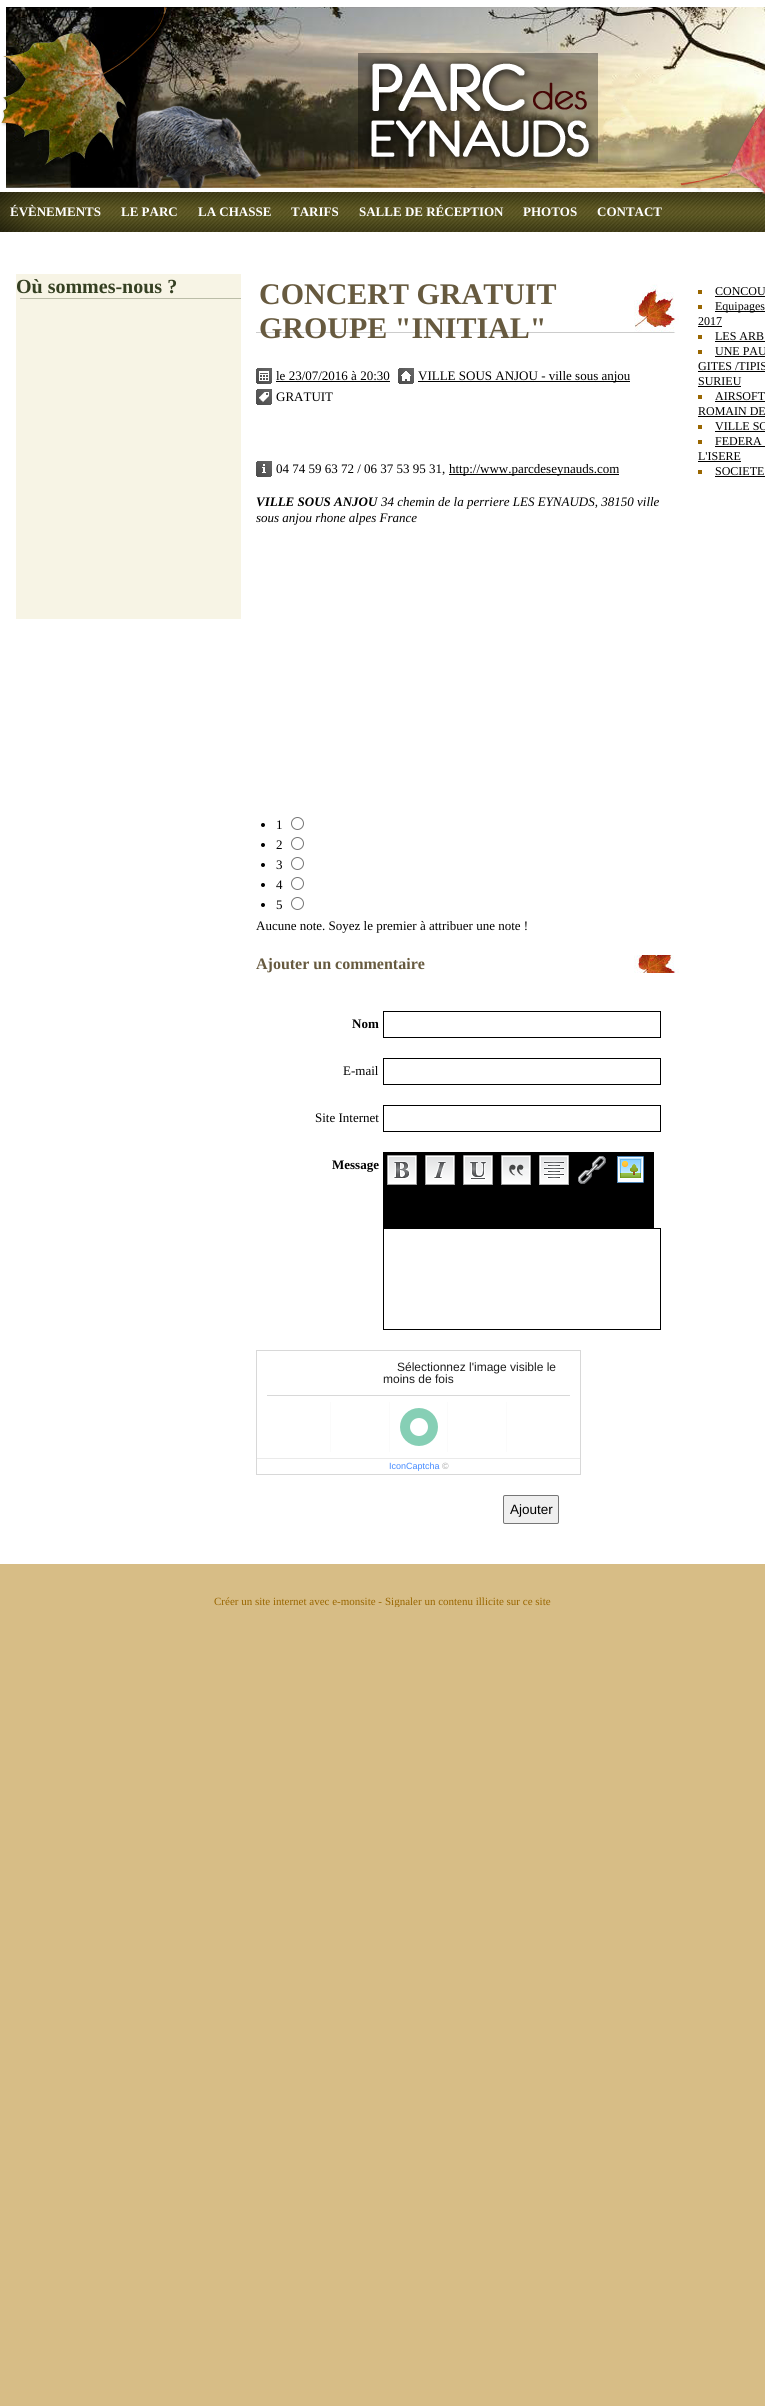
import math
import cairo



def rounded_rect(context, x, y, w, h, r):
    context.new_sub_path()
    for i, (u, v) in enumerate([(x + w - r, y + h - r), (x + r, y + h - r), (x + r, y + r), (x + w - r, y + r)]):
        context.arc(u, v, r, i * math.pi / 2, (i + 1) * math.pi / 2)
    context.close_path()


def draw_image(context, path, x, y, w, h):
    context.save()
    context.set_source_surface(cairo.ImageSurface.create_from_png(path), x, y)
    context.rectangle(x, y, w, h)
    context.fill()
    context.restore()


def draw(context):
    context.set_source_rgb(215 / 255, 189 / 255, 134 / 255)
    context.paint()
    draw_image(context, "images/1.png", 0, 0, 765, 192)
    context.set_source_rgb(1, 1, 1)
    context.rectangle(0, 232, 765, 1332)
    context.fill()
    draw_image(context, "images/2.png", 0, 192, 765, 40)
    context.set_source_rgb(247 / 255, 244 / 255, 229 / 255)
    context.rectangle(16, 274, 225, 345)
    context.fill()
    draw_image(context, "images/3.png", 20, 298, 221, 1)
    draw_image(context, "images/4.png", 256, 284, 423, 49)
    draw_image(context, "images/5.png", 256, 368, 16, 16)
    context.set_source_rgb(0, 0, 0)
    context.rectangle(276, 381, 114, 1)
    context.fill()
    draw_image(context, "images/6.png", 398, 368, 16, 16)
    context.rectangle(418, 381, 212, 1)
    context.fill()
    draw_image(context, "images/7.png", 256, 389, 16, 16)
    draw_image(context, "images/8.png", 256, 461, 16, 16)
    context.rectangle(449, 474, 170, 1)
    context.fill()
    context.arc(263, 825, 2, 0, 2 * math.pi)
    context.fill()
    context.arc(297.5, 823.5, 6, 0, 2 * math.pi)
    context.set_source_rgb(118 / 255, 118 / 255, 118 / 255)
    context.set_line_width(1)
    context.stroke()
    context.set_source_rgb(0, 0, 0)
    context.arc(263, 845, 2, 0, 2 * math.pi)
    context.fill()
    context.arc(297.5, 843.5, 6, 0, 2 * math.pi)
    context.set_source_rgb(118 / 255, 118 / 255, 118 / 255)
    context.stroke()
    context.set_source_rgb(0, 0, 0)
    context.arc(263, 865, 2, 0, 2 * math.pi)
    context.fill()
    context.arc(297.5, 863.5, 6, 0, 2 * math.pi)
    context.set_source_rgb(118 / 255, 118 / 255, 118 / 255)
    context.stroke()
    context.set_source_rgb(0, 0, 0)
    context.arc(263, 885, 2, 0, 2 * math.pi)
    context.fill()
    context.arc(297.5, 883.5, 6, 0, 2 * math.pi)
    context.set_source_rgb(118 / 255, 118 / 255, 118 / 255)
    context.stroke()
    context.set_source_rgb(0, 0, 0)
    context.arc(263, 905, 2, 0, 2 * math.pi)
    context.fill()
    context.arc(297.5, 903.5, 6, 0, 2 * math.pi)
    context.set_source_rgb(118 / 255, 118 / 255, 118 / 255)
    context.stroke()
    draw_image(context, "images/9.png", 634, 955, 45, 18)
    context.rectangle(383.5, 1011.5, 277, 26)
    context.set_source_rgb(0, 0, 0)
    context.stroke()
    context.rectangle(383.5, 1058.5, 277, 26)
    context.stroke()
    context.rectangle(383.5, 1105.5, 277, 26)
    context.stroke()
    context.rectangle(383, 1152, 271, 76)
    context.fill()
    draw_image(context, "images/10.png", 387, 1155, 30, 30)
    draw_image(context, "images/11.png", 425, 1155, 30, 30)
    draw_image(context, "images/12.png", 463, 1155, 30, 30)
    draw_image(context, "images/13.png", 501, 1155, 30, 30)
    draw_image(context, "images/14.png", 539, 1155, 30, 30)
    draw_image(context, "images/15.png", 578, 1156, 28, 28)
    draw_image(context, "images/16.png", 617, 1156, 27, 27)
    context.rectangle(383.5, 1228.5, 277, 101)
    context.stroke()
    context.rectangle(256.5, 1350.5, 324, 124)
    context.set_source_rgb(216 / 255, 216 / 255, 216 / 255)
    context.stroke()
    context.rectangle(267, 1395, 303, 1)
    context.fill()
    context.set_source_rgb(251 / 255, 251 / 255, 251 / 255)
    context.rectangle(330, 1402, 1, 50)
    context.fill()
    context.rectangle(389, 1402, 1, 50)
    context.fill()
    context.arc(419, 1427, 14, 0, 2 * math.pi)
    context.set_source_rgb(134 / 255, 207 / 255, 181 / 255)
    context.set_line_width(10)
    context.stroke()
    context.set_source_rgb(251 / 255, 251 / 255, 251 / 255)
    context.rectangle(447, 1402, 1, 50)
    context.fill()
    context.rectangle(506, 1402, 1, 50)
    context.fill()
    context.set_source_rgb(234 / 255, 234 / 255, 234 / 255)
    context.rectangle(257, 1458, 323, 1)
    context.fill()
    context.set_source_rgb(239 / 255, 239 / 255, 239 / 255)
    rounded_rect(context, 503.5, 1495.5, 55, 28, 1.5)
    context.fill_preserve()
    context.set_source_rgb(118 / 255, 118 / 255, 118 / 255)
    context.set_line_width(1)
    context.stroke()
    context.set_source_rgb(153 / 255, 102 / 255, 0)
    context.rectangle(698, 290, 4, 4)
    context.fill()
    context.set_source_rgb(0, 0, 0)
    context.rectangle(715, 296, 50, 1)
    context.fill()
    context.set_source_rgb(153 / 255, 102 / 255, 0)
    context.rectangle(698, 305, 4, 4)
    context.fill()
    context.set_source_rgb(0, 0, 0)
    context.rectangle(715, 311, 50, 1)
    context.fill()
    context.rectangle(698, 326, 24, 1)
    context.fill()
    context.set_source_rgb(153 / 255, 102 / 255, 0)
    context.rectangle(698, 335, 4, 4)
    context.fill()
    context.set_source_rgb(0, 0, 0)
    context.rectangle(715, 341, 50, 1)
    context.fill()
    context.set_source_rgb(153 / 255, 102 / 255, 0)
    context.rectangle(698, 350, 4, 4)
    context.fill()
    context.set_source_rgb(0, 0, 0)
    context.rectangle(715, 356, 50, 1)
    context.fill()
    context.rectangle(698, 371, 67, 1)
    context.fill()
    context.rectangle(698, 386, 43, 1)
    context.fill()
    context.set_source_rgb(153 / 255, 102 / 255, 0)
    context.rectangle(698, 395, 4, 4)
    context.fill()
    context.set_source_rgb(0, 0, 0)
    context.rectangle(715, 401, 50, 1)
    context.fill()
    context.rectangle(698, 416, 67, 1)
    context.fill()
    context.set_source_rgb(153 / 255, 102 / 255, 0)
    context.rectangle(698, 425, 4, 4)
    context.fill()
    context.set_source_rgb(0, 0, 0)
    context.rectangle(715, 431, 50, 1)
    context.fill()
    context.set_source_rgb(153 / 255, 102 / 255, 0)
    context.rectangle(698, 440, 4, 4)
    context.fill()
    context.set_source_rgb(0, 0, 0)
    context.rectangle(715, 446, 50, 1)
    context.fill()
    context.rectangle(698, 461, 43, 1)
    context.fill()
    context.set_source_rgb(153 / 255, 102 / 255, 0)
    context.rectangle(698, 470, 4, 4)
    context.fill()
    context.set_source_rgb(0, 0, 0)
    context.rectangle(715, 476, 50, 1)
    context.fill()
    context.select_font_face("Liberation Serif", cairo.FontSlant.NORMAL, cairo.FontWeight.BOLD)
    context.set_font_size(13)
    context.set_source_rgb(1, 1, 1)
    context.move_to(10, 216)
    context.show_text("ÉVÈNEMENTS")
    context.move_to(121, 216)
    context.show_text("LE PARC")
    context.move_to(198, 216)
    context.show_text("LA CHASSE")
    context.move_to(291, 216)
    context.show_text("TARIFS")
    context.move_to(359, 216)
    context.show_text("SALLE DE RÉCEPTION")
    context.move_to(523, 216)
    context.show_text("PHOTOS")
    context.move_to(597, 216)
    context.show_text("CONTACT")
    context.set_font_size(20)
    context.set_source_rgb(53 / 255, 64 / 255, 34 / 255)
    context.move_to(16, 293)
    context.show_text("Où sommes-nous ?")
    context.set_font_size(30)
    context.set_source_rgb(103 / 255, 90 / 255, 63 / 255)
    context.move_to(259, 304)
    context.show_text("CONCERT GRATUIT")
    context.move_to(259, 338)
    context.show_text("GROUPE \"INITIAL\"")
    context.select_font_face("Liberation Serif")
    context.set_font_size(13)
    context.set_source_rgb(0, 0, 0)
    context.move_to(276, 380)
    context.show_text("le 23/07/2016 à 20:30")
    context.move_to(418, 380)
    context.show_text("VILLE SOUS ANJOU - ville sous anjou")
    context.move_to(276, 401)
    context.show_text("GRATUIT")
    context.move_to(276, 473)
    context.show_text("04 74 59 63 72 / 06 37 53 95 31,")
    context.move_to(449, 473)
    context.show_text("http://www.parcdeseynauds.com")
    context.select_font_face("Liberation Serif", cairo.FontSlant.ITALIC, cairo.FontWeight.BOLD)
    context.move_to(256, 506)
    context.show_text("VILLE SOUS ANJOU")
    context.select_font_face("Liberation Serif", cairo.FontSlant.ITALIC)
    context.move_to(381, 506)
    context.show_text("34 chemin de la perriere LES EYNAUDS, 38150 ville")
    context.move_to(256, 522)
    context.show_text("sous anjou rhone alpes France")
    context.select_font_face("Liberation Serif")
    context.move_to(276, 829)
    context.show_text("1")
    context.move_to(276, 849)
    context.show_text("2")
    context.move_to(276, 869)
    context.show_text("3")
    context.move_to(276, 889)
    context.show_text("4")
    context.move_to(276, 909)
    context.show_text("5")
    context.move_to(256, 930)
    context.show_text("Aucune note. Soyez le premier à attribuer une note !")
    context.select_font_face("Liberation Serif", cairo.FontSlant.NORMAL, cairo.FontWeight.BOLD)
    context.set_font_size(16)
    context.set_source_rgb(103 / 255, 90 / 255, 63 / 255)
    context.move_to(256, 969)
    context.show_text("Ajouter un commentaire")
    context.set_font_size(13)
    context.set_source_rgb(0, 0, 0)
    context.move_to(352, 1028)
    context.show_text("Nom")
    context.select_font_face("Liberation Serif")
    context.move_to(343, 1075)
    context.show_text("E-mail")
    context.move_to(315, 1122)
    context.show_text("Site Internet")
    context.select_font_face("Liberation Serif", cairo.FontSlant.NORMAL, cairo.FontWeight.BOLD)
    context.move_to(332, 1169)
    context.show_text("Message")
    context.select_font_face("Liberation Sans")
    context.set_font_size(12)
    context.set_source_rgb(29 / 255, 29 / 255, 29 / 255)
    context.move_to(397, 1371)
    context.show_text("Sélectionnez l'image visible le")
    context.move_to(383, 1383)
    context.show_text("moins de fois")
    context.set_font_size(9)
    context.set_source_rgb(68 / 255, 138 / 255, 1)
    context.move_to(389, 1469)
    context.show_text("IconCaptcha")
    context.set_source_rgb(167 / 255, 167 / 255, 167 / 255)
    context.move_to(442, 1469)
    context.show_text("©")
    context.set_font_size(13.5)
    context.set_source_rgb(0, 0, 0)
    context.move_to(510, 1514)
    context.show_text("Ajouter")
    context.select_font_face("Liberation Serif")
    context.set_font_size(12)
    context.move_to(715, 295)
    context.show_text("CONCOU")
    context.move_to(715, 310)
    context.show_text("Equipages")
    context.move_to(698, 325)
    context.show_text("2017")
    context.move_to(715, 340)
    context.show_text("LES ARB")
    context.move_to(715, 355)
    context.show_text("UNE PAU")
    context.move_to(698, 370)
    context.show_text("GITES /TIPIS")
    context.move_to(698, 385)
    context.show_text("SURIEU")
    context.move_to(715, 400)
    context.show_text("AIRSOFT")
    context.move_to(698, 415)
    context.show_text("ROMAIN DE")
    context.move_to(715, 430)
    context.show_text("VILLE SO")
    context.move_to(715, 445)
    context.show_text("FEDERA")
    context.move_to(698, 460)
    context.show_text("L'ISERE")
    context.move_to(715, 475)
    context.show_text("SOCIETE")
    context.set_font_size(11)
    context.set_source_rgb(153 / 255, 102 / 255, 0)
    context.move_to(214, 1605)
    context.show_text("Créer un site internet avec e-monsite -")
    context.save()
    context.rectangle(0, 1584, 765, 23)
    context.clip()
    context.move_to(385, 1605)
    context.show_text("Signaler un contenu illicite sur ce site")
    context.restore()


surface = cairo.ImageSurface(cairo.Format.RGB24, 765, 2406)
context = cairo.Context(surface)
options = cairo.FontOptions()
options.set_hint_metrics(cairo.HintMetrics.OFF)
options.set_hint_style(cairo.HintStyle.NONE)
context.set_font_options(options)
context.set_miter_limit(4)
draw(context)
surface.write_to_png("out.png")
